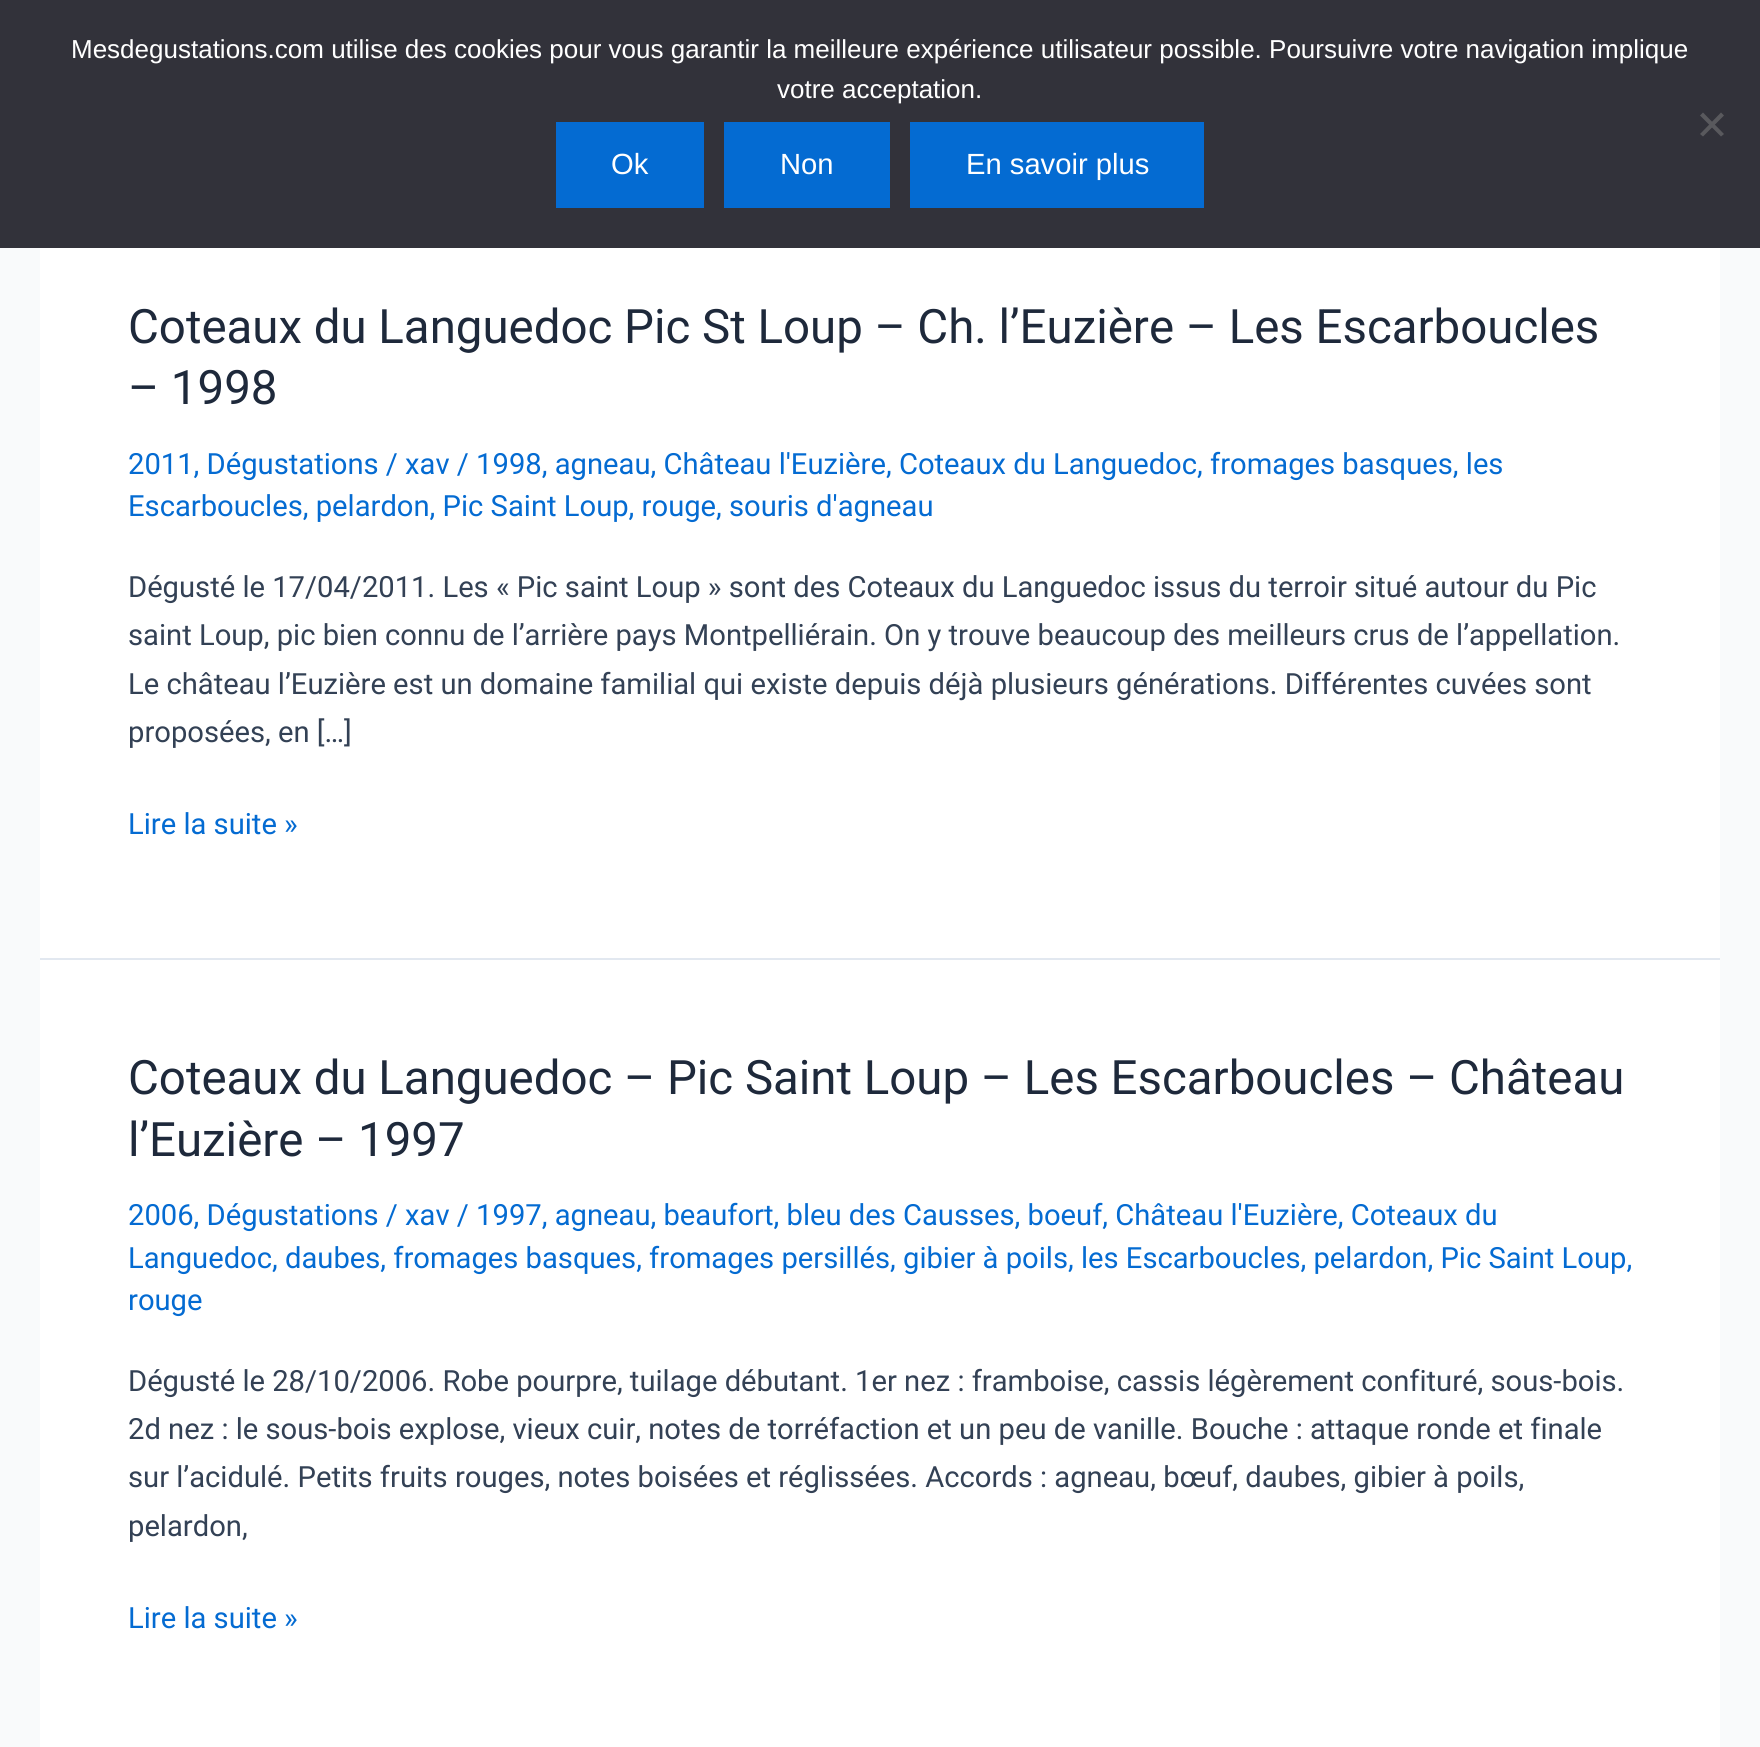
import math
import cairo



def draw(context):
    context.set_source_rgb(249 / 255, 250 / 255, 251 / 255)
    context.paint()
    context.set_source_rgb(50 / 255, 50 / 255, 58 / 255)
    context.rectangle(0, 0, 1760, 248)
    context.fill()
    context.set_source_rgb(89 / 255, 89 / 255, 93 / 255)
    context.new_path()
    context.move_to(1721, 112.5)
    context.line_to(1724, 115.5)
    context.line_to(1703, 136.5)
    context.line_to(1700, 134)
    context.close_path()
    context.fill()
    context.new_path()
    context.move_to(1700, 115.5)
    context.line_to(1703, 112.5)
    context.line_to(1724, 134)
    context.line_to(1721, 136.5)
    context.close_path()
    context.fill()
    context.set_source_rgb(4 / 255, 107 / 255, 210 / 255)
    context.rectangle(556, 122, 148, 86)
    context.fill()
    context.rectangle(724, 122, 166, 86)
    context.fill()
    context.rectangle(910, 122, 294, 86)
    context.fill()
    context.set_source_rgb(1, 1, 1)
    context.rectangle(40, 248, 1680, 710)
    context.fill()
    context.set_source_rgb(226 / 255, 232 / 255, 240 / 255)
    context.rectangle(40, 958, 1680, 2)
    context.fill()
    context.set_source_rgb(1, 1, 1)
    context.rectangle(40, 960, 1680, 787)
    context.fill()
    context.select_font_face("Liberation Sans")
    context.set_font_size(26)
    context.move_to(71, 58)
    context.show_text("Mesdegustations.com utilise des cookies pour vous garantir la meilleure expérience utilisateur possible. Poursuivre votre navigation implique")
    context.move_to(777, 98)
    context.show_text("votre acceptation.")
    context.set_font_size(29.18)
    context.move_to(611, 174)
    context.show_text("Ok")
    context.move_to(780, 174)
    context.show_text("Non")
    context.move_to(966, 174)
    context.show_text("En savoir plus")
    context.select_font_face("Roboto")
    context.set_font_size(47.4)
    context.set_source_rgb(30 / 255, 41 / 255, 59 / 255)
    context.move_to(128, 343)
    context.show_text("Coteaux du Languedoc Pic St Loup – Ch. l’Euzière – Les Escarboucles")
    context.move_to(128, 404)
    context.show_text("– 1998")
    context.set_font_size(29.18)
    context.set_source_rgb(4 / 255, 107 / 255, 210 / 255)
    context.move_to(128, 474)
    context.show_text("2011, Dégustations / xav / 1998, agneau, Château l'Euzière, Coteaux du Languedoc, fromages basques, les")
    context.move_to(128, 516)
    context.show_text("Escarboucles, pelardon, Pic Saint Loup, rouge, souris d'agneau")
    context.set_source_rgb(51 / 255, 65 / 255, 85 / 255)
    context.move_to(128, 597)
    context.show_text("Dégusté le 17/04/2011. Les « Pic saint Loup » sont des Coteaux du Languedoc issus du terroir situé autour du Pic")
    context.move_to(128, 645)
    context.show_text("saint Loup, pic bien connu de l’arrière pays Montpelliérain. On y trouve beaucoup des meilleurs crus de l’appellation.")
    context.move_to(128, 694)
    context.show_text("Le château l’Euzière est un domaine familial qui existe depuis déjà plusieurs générations. Différentes cuvées sont")
    context.move_to(128, 742)
    context.show_text("proposées, en […]")
    context.set_source_rgb(4 / 255, 107 / 255, 210 / 255)
    context.move_to(128, 834)
    context.show_text("Lire la suite »")
    context.set_font_size(47.4)
    context.set_source_rgb(30 / 255, 41 / 255, 59 / 255)
    context.move_to(128, 1094)
    context.show_text("Coteaux du Languedoc – Pic Saint Loup – Les Escarboucles – Château")
    context.move_to(128, 1156)
    context.show_text("l’Euzière – 1997")
    context.set_font_size(29.18)
    context.set_source_rgb(4 / 255, 107 / 255, 210 / 255)
    context.move_to(128, 1225)
    context.show_text("2006, Dégustations / xav / 1997, agneau, beaufort, bleu des Causses, boeuf, Château l'Euzière, Coteaux du")
    context.move_to(128, 1268)
    context.show_text("Languedoc, daubes, fromages basques, fromages persillés, gibier à poils, les Escarboucles, pelardon, Pic Saint Loup,")
    context.move_to(128, 1310)
    context.show_text("rouge")
    context.set_source_rgb(51 / 255, 65 / 255, 85 / 255)
    context.move_to(128, 1391)
    context.show_text("Dégusté le 28/10/2006. Robe pourpre, tuilage débutant. 1er nez : framboise, cassis légèrement confituré, sous-bois.")
    context.move_to(128, 1439)
    context.show_text("2d nez : le sous-bois explose, vieux cuir, notes de torréfaction et un peu de vanille. Bouche : attaque ronde et finale")
    context.move_to(128, 1487)
    context.show_text("sur l’acidulé. Petits fruits rouges, notes boisées et réglissées. Accords : agneau, bœuf, daubes, gibier à poils,")
    context.move_to(128, 1536)
    context.show_text("pelardon,")
    context.set_source_rgb(4 / 255, 107 / 255, 210 / 255)
    context.move_to(128, 1628)
    context.show_text("Lire la suite »")


surface = cairo.ImageSurface(cairo.Format.RGB24, 1760, 1747)
context = cairo.Context(surface)
options = cairo.FontOptions()
options.set_hint_metrics(cairo.HintMetrics.OFF)
options.set_hint_style(cairo.HintStyle.NONE)
context.set_font_options(options)
context.set_miter_limit(4)
draw(context)
surface.write_to_png("out.png")
